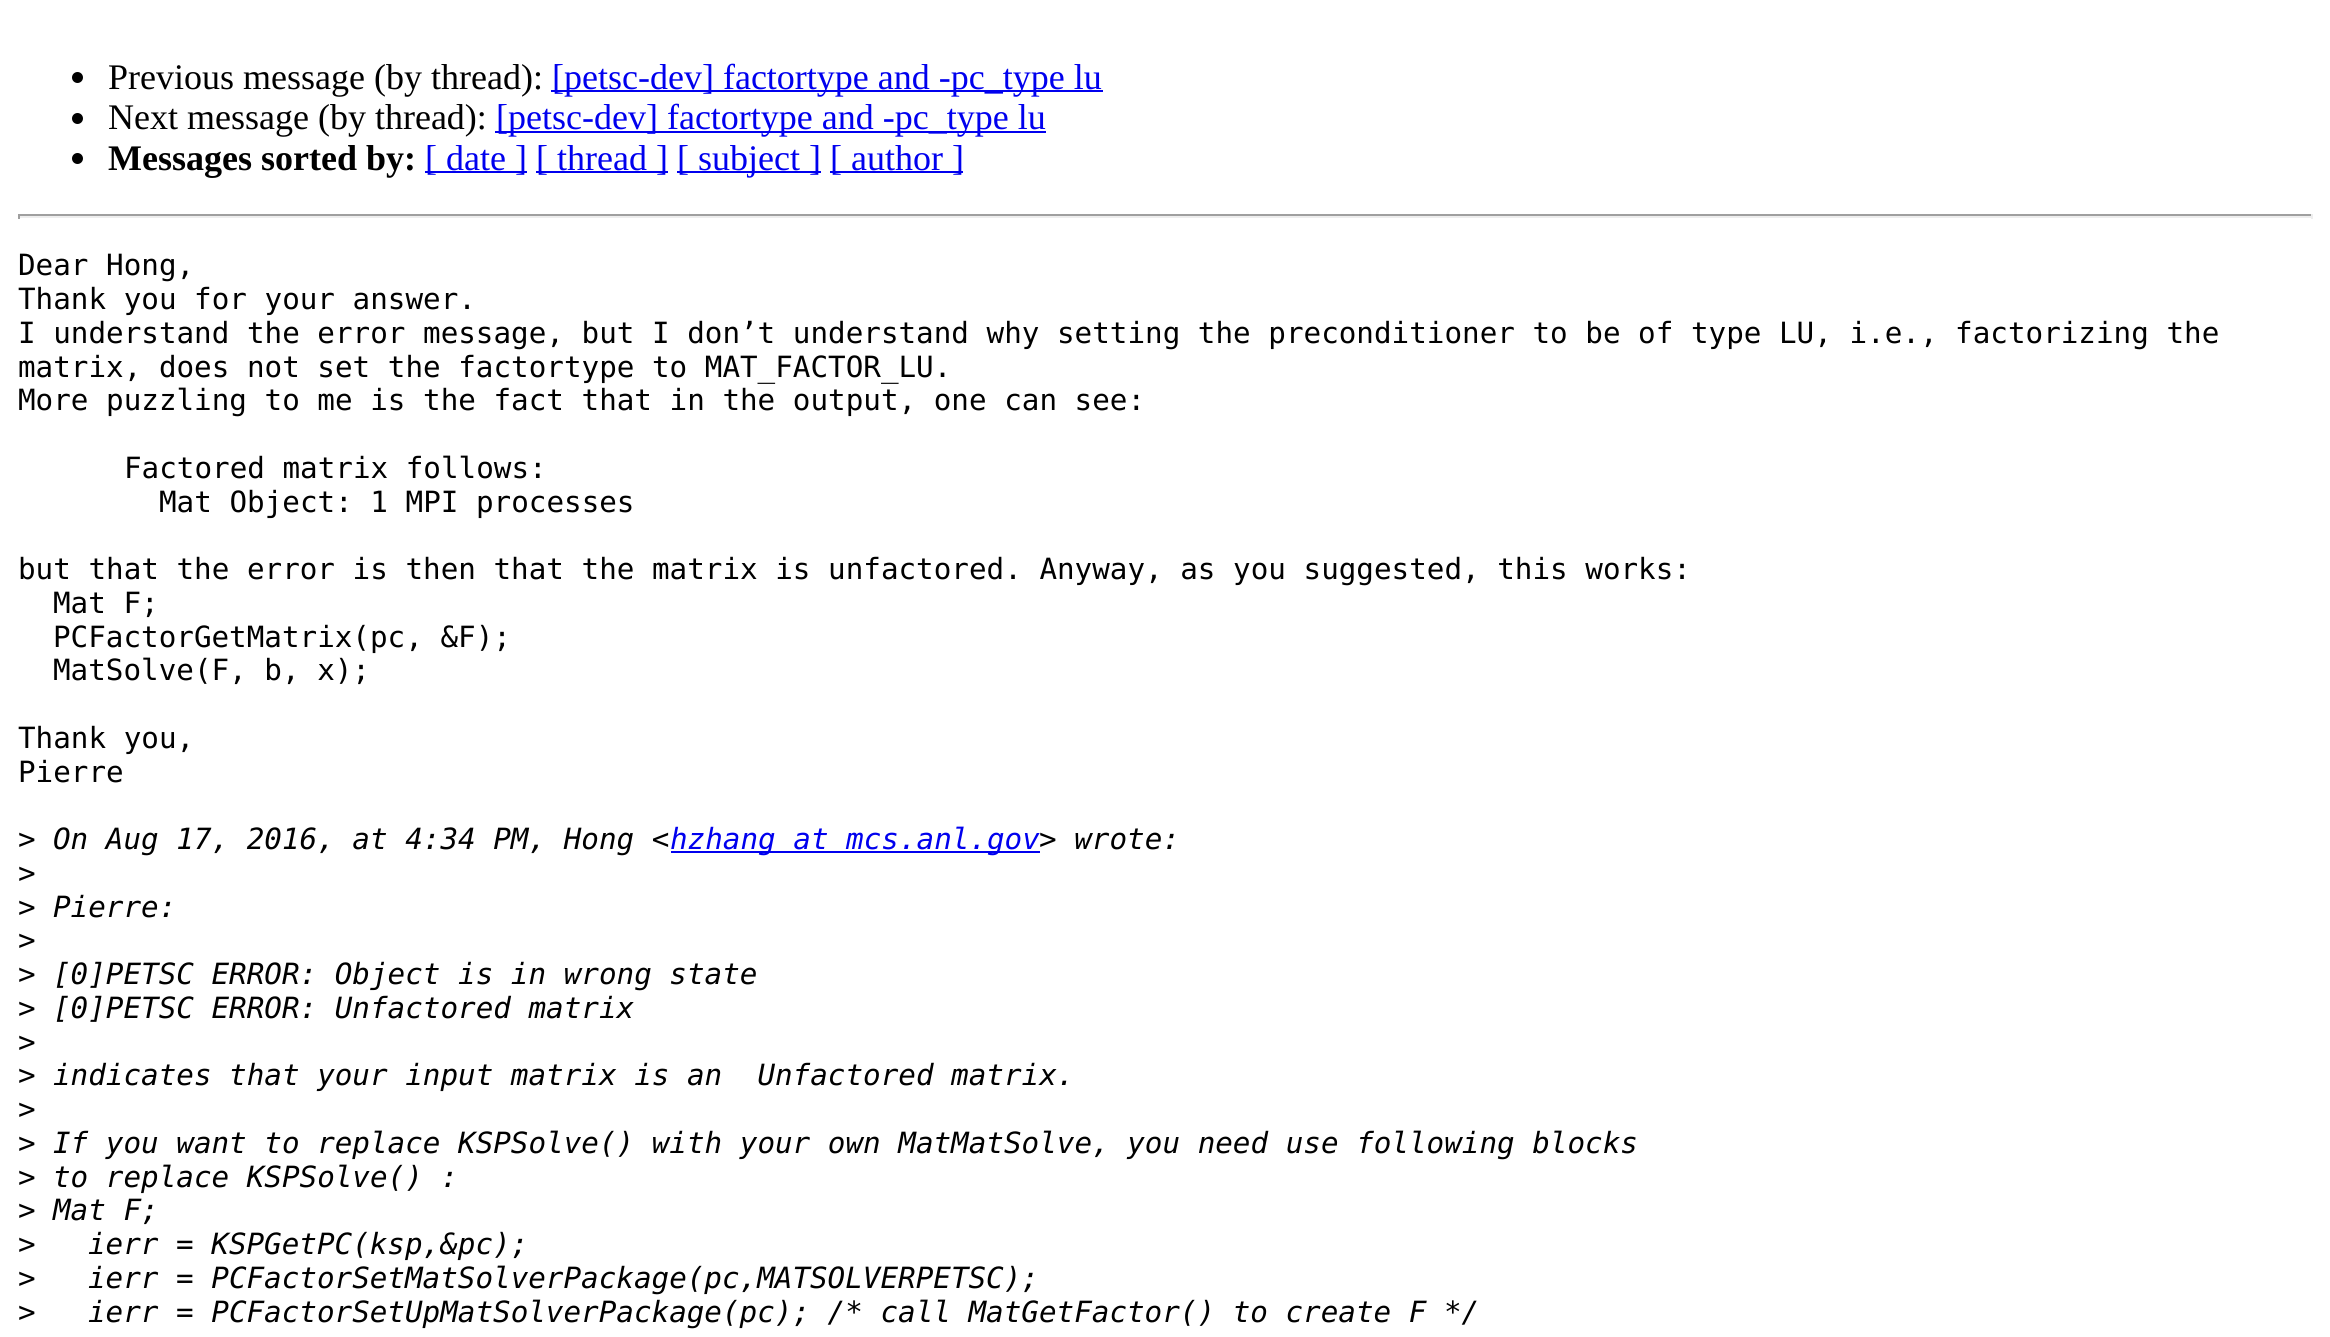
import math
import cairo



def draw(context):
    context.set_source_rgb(1, 1, 1)
    context.paint()
    context.set_source_rgb(0, 0, 0)
    context.arc(77.5, 77.5, 5.5, 0, 2 * math.pi)
    context.fill()
    context.set_source_rgb(0, 0, 238 / 255)
    context.rectangle(551, 90, 552, 2)
    context.fill()
    context.set_source_rgb(0, 0, 0)
    context.arc(77.5, 118.5, 5.5, 0, 2 * math.pi)
    context.fill()
    context.set_source_rgb(0, 0, 238 / 255)
    context.rectangle(495, 131, 551, 2)
    context.fill()
    context.set_source_rgb(0, 0, 0)
    context.arc(77.5, 158.5, 5.5, 0, 2 * math.pi)
    context.fill()
    context.set_source_rgb(0, 0, 238 / 255)
    context.rectangle(425, 171, 102, 2)
    context.fill()
    context.rectangle(536, 171, 132, 2)
    context.fill()
    context.rectangle(677, 171, 144, 2)
    context.fill()
    context.rectangle(830, 171, 133, 2)
    context.fill()
    context.set_source_rgb(159 / 255, 159 / 255, 159 / 255)
    context.rectangle(18, 214, 2295, 2)
    context.fill()
    context.set_source_rgb(238 / 255, 238 / 255, 238 / 255)
    context.rectangle(2311, 214, 2, 5)
    context.fill()
    context.rectangle(18, 216, 2295, 2)
    context.fill()
    context.set_source_rgb(159 / 255, 159 / 255, 159 / 255)
    context.rectangle(18, 214, 2, 5)
    context.fill()
    context.set_source_rgb(0, 0, 238 / 255)
    context.rectangle(671, 851, 369, 2)
    context.fill()
    context.select_font_face("Liberation Serif")
    context.set_font_size(36)
    context.set_source_rgb(0, 0, 0)
    context.move_to(108, 89)
    context.show_text("Previous message (by thread):")
    context.set_source_rgb(0, 0, 238 / 255)
    context.move_to(552, 89)
    context.show_text("[petsc-dev] factortype and -pc_type lu")
    context.set_source_rgb(0, 0, 0)
    context.move_to(108, 129)
    context.show_text("Next message (by thread):")
    context.set_source_rgb(0, 0, 238 / 255)
    context.move_to(496, 129)
    context.show_text("[petsc-dev] factortype and -pc_type lu")
    context.select_font_face("Liberation Serif", cairo.FontSlant.NORMAL, cairo.FontWeight.BOLD)
    context.set_source_rgb(0, 0, 0)
    context.move_to(108, 170)
    context.show_text("Messages sorted by:")
    context.select_font_face("Liberation Serif")
    context.set_source_rgb(0, 0, 238 / 255)
    context.move_to(425, 170)
    context.show_text("[ date ]")
    context.move_to(536, 170)
    context.show_text("[ thread ]")
    context.move_to(677, 170)
    context.show_text("[ subject ]")
    context.move_to(830, 170)
    context.show_text("[ author ]")
    context.select_font_face("DejaVu Sans Mono")
    context.set_font_size(29.25)
    context.set_source_rgb(0, 0, 0)
    context.move_to(18, 275)
    context.show_text("Dear Hong,")
    context.move_to(18, 309)
    context.show_text("Thank you for your answer.")
    context.move_to(18, 343)
    context.show_text("I understand the error message, but I don’t understand why setting the preconditioner to be of type LU, i.e., factorizing the")
    context.move_to(18, 377)
    context.show_text("matrix, does not set the factortype to MAT_FACTOR_LU.")
    context.move_to(18, 410)
    context.show_text("More puzzling to me is the fact that in the output, one can see:")
    context.move_to(124, 478)
    context.show_text("Factored matrix follows:")
    context.move_to(159, 512)
    context.show_text("Mat Object: 1 MPI processes")
    context.move_to(18, 579)
    context.show_text("but that the error is then that the matrix is unfactored. Anyway, as you suggested, this works:")
    context.move_to(53, 613)
    context.show_text("Mat F;")
    context.move_to(53, 647)
    context.show_text("PCFactorGetMatrix(pc, &F);")
    context.move_to(53, 680)
    context.show_text("MatSolve(F, b, x);")
    context.move_to(18, 748)
    context.show_text("Thank you,")
    context.move_to(18, 782)
    context.show_text("Pierre")
    context.move_to(18, 849)
    context.show_text(">")
    context.select_font_face("DejaVu Sans Mono", cairo.FontSlant.ITALIC)
    context.move_to(53, 849)
    context.show_text("On Aug 17, 2016, at 4:34 PM, Hong <")
    context.set_source_rgb(0, 0, 238 / 255)
    context.move_to(670, 849)
    context.show_text("hzhang at mcs.anl.gov")
    context.set_source_rgb(0, 0, 0)
    context.move_to(1039, 849)
    context.show_text("> wrote:")
    context.select_font_face("DejaVu Sans Mono")
    context.move_to(18, 883)
    context.show_text(">")
    context.move_to(18, 917)
    context.show_text(">")
    context.select_font_face("DejaVu Sans Mono", cairo.FontSlant.ITALIC)
    context.move_to(53, 917)
    context.show_text("Pierre:")
    context.select_font_face("DejaVu Sans Mono")
    context.move_to(18, 950)
    context.show_text(">")
    context.move_to(18, 984)
    context.show_text(">")
    context.select_font_face("DejaVu Sans Mono", cairo.FontSlant.ITALIC)
    context.move_to(53, 984)
    context.show_text("[0]PETSC ERROR: Object is in wrong state")
    context.select_font_face("DejaVu Sans Mono")
    context.move_to(18, 1018)
    context.show_text(">")
    context.select_font_face("DejaVu Sans Mono", cairo.FontSlant.ITALIC)
    context.move_to(53, 1018)
    context.show_text("[0]PETSC ERROR: Unfactored matrix")
    context.select_font_face("DejaVu Sans Mono")
    context.move_to(18, 1052)
    context.show_text(">")
    context.move_to(18, 1085)
    context.show_text(">")
    context.select_font_face("DejaVu Sans Mono", cairo.FontSlant.ITALIC)
    context.move_to(53, 1085)
    context.show_text("indicates that your input matrix is an  Unfactored matrix.")
    context.select_font_face("DejaVu Sans Mono")
    context.move_to(18, 1119)
    context.show_text(">")
    context.move_to(18, 1153)
    context.show_text(">")
    context.select_font_face("DejaVu Sans Mono", cairo.FontSlant.ITALIC)
    context.move_to(53, 1153)
    context.show_text("If you want to replace KSPSolve() with your own MatMatSolve, you need use following blocks")
    context.select_font_face("DejaVu Sans Mono")
    context.move_to(18, 1187)
    context.show_text(">")
    context.select_font_face("DejaVu Sans Mono", cairo.FontSlant.ITALIC)
    context.move_to(53, 1187)
    context.show_text("to replace KSPSolve() :")
    context.select_font_face("DejaVu Sans Mono")
    context.move_to(18, 1220)
    context.show_text(">")
    context.select_font_face("DejaVu Sans Mono", cairo.FontSlant.ITALIC)
    context.move_to(53, 1220)
    context.show_text("Mat F;")
    context.select_font_face("DejaVu Sans Mono")
    context.move_to(18, 1254)
    context.show_text(">")
    context.select_font_face("DejaVu Sans Mono", cairo.FontSlant.ITALIC)
    context.move_to(88, 1254)
    context.show_text("ierr = KSPGetPC(ksp,&pc);")
    context.select_font_face("DejaVu Sans Mono")
    context.move_to(18, 1288)
    context.show_text(">")
    context.select_font_face("DejaVu Sans Mono", cairo.FontSlant.ITALIC)
    context.move_to(88, 1288)
    context.show_text("ierr = PCFactorSetMatSolverPackage(pc,MATSOLVERPETSC);")
    context.select_font_face("DejaVu Sans Mono")
    context.move_to(18, 1322)
    context.show_text(">")
    context.select_font_face("DejaVu Sans Mono", cairo.FontSlant.ITALIC)
    context.move_to(88, 1322)
    context.show_text("ierr = PCFactorSetUpMatSolverPackage(pc); /* call MatGetFactor() to create F */")


surface = cairo.ImageSurface(cairo.Format.RGB24, 2330, 1337)
context = cairo.Context(surface)
options = cairo.FontOptions()
options.set_hint_metrics(cairo.HintMetrics.OFF)
options.set_hint_style(cairo.HintStyle.NONE)
context.set_font_options(options)
context.set_miter_limit(4)
draw(context)
surface.write_to_png("out.png")
